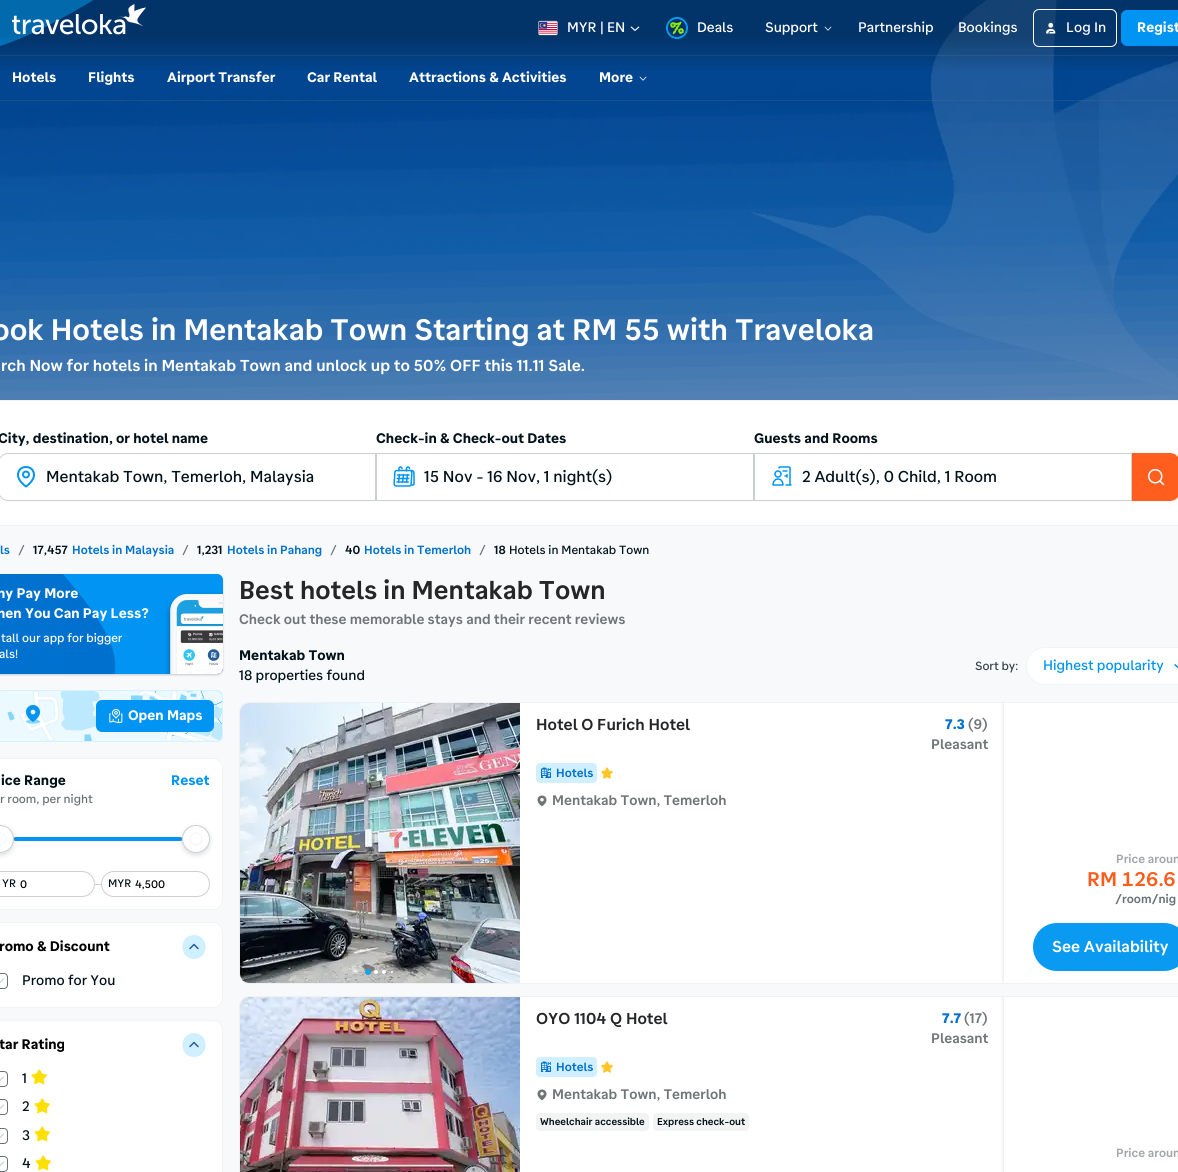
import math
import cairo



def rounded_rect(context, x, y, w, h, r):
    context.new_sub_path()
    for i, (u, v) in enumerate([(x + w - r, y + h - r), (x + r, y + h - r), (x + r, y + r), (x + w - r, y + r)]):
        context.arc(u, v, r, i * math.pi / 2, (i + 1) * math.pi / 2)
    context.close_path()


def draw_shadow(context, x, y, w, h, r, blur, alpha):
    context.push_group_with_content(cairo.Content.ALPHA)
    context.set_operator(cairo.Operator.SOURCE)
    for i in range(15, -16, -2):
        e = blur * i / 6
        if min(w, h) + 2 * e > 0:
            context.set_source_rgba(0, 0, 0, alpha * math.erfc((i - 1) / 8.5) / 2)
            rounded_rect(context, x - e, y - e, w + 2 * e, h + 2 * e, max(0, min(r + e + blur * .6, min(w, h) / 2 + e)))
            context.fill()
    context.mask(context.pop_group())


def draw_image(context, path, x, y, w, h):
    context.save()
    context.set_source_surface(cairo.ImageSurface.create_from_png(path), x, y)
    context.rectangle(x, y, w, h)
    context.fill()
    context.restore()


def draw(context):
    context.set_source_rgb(247 / 255, 249 / 255, 250 / 255)
    context.paint()
    context.set_source_rgb(88 / 255, 132 / 255, 181 / 255)
    context.rectangle(0, 108, 1178, 292)
    context.fill()
    draw_image(context, "images/1.png", 0, 0, 1178, 400)
    context.set_source_rgb(1 / 255, 148 / 255, 243 / 255)
    context.new_path()
    context.move_to(171, -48)
    context.curve_to(100, -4, 19, 51, -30, 51)
    context.curve_to(-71, 51, -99, 27, -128, -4)
    context.curve_to(-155, -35, -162, -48, -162, -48)
    context.close_path()
    context.fill()
    gradient = cairo.LinearGradient(589, 0, 589, 72)
    gradient.add_color_stop_rgba(0.5, 3 / 255, 18 / 255, 26 / 255, 0.33)
    gradient.add_color_stop_rgba(1, 3 / 255, 18 / 255, 26 / 255, 0)
    context.set_source(gradient)
    context.rectangle(0, 0, 1178, 70)
    context.fill()
    draw_image(context, "images/2.png", 12, 4, 134, 31)
    draw_image(context, "images/3.png", 538, 20, 20, 16)
    draw_image(context, "images/4.png", 630, 26, 10, 5)
    draw_image(context, "images/5.png", 666, 17, 22, 22)
    draw_image(context, "images/6.png", 824, 26, 8, 5)
    rounded_rect(context, 1033.5, 9.5, 83, 37, 5.5)
    context.set_source_rgb(1, 1, 1)
    context.set_line_width(1)
    context.stroke()
    draw_image(context, "images/7.png", 1046, 22, 10, 12)
    context.set_source_rgb(1 / 255, 148 / 255, 243 / 255)
    rounded_rect(context, 1121, 10, 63, 36, 6)
    context.fill()
    context.set_source_rgba(104 / 255, 113 / 255, 118 / 255, 0.25)
    context.rectangle(0, 55, 1178, 1)
    context.fill()
    context.rectangle(0, 100, 1178, 1)
    context.fill()
    draw_image(context, "images/8.png", 639, 76, 8, 5)
    context.set_source_rgb(1, 1, 1)
    context.rectangle(-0.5, 400.5, 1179, 125)
    context.fill_preserve()
    context.set_source_rgb(240 / 255, 241 / 255, 242 / 255)
    context.stroke()
    context.new_path()
    context.move_to(8, 453.5)
    context.line_to(375.5, 453.5)
    context.line_to(375.5, 500.5)
    context.line_to(8, 500.5)
    context.curve_to(3, 500.5, -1.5, 496, -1.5, 491)
    context.line_to(-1.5, 463)
    context.curve_to(-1.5, 458, 3, 453.5, 8, 453.5)
    context.close_path()
    context.set_source_rgb(205 / 255, 208 / 255, 209 / 255)
    context.stroke()
    draw_image(context, "images/9.png", 17, 466, 18, 22)
    context.rectangle(376.5, 453.5, 377, 47)
    context.stroke()
    draw_image(context, "images/10.png", 393, 466, 22, 21)
    context.rectangle(754.5, 453.5, 377, 47)
    context.stroke()
    draw_image(context, "images/11.png", 772, 466, 20, 20)
    context.set_source_rgb(1, 94 / 255, 31 / 255)
    context.new_path()
    context.move_to(1132, 453)
    context.line_to(1170, 453)
    context.curve_to(1175.5, 453, 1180, 457.5, 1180, 463)
    context.line_to(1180, 491)
    context.curve_to(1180, 496.5, 1175.5, 501, 1170, 501)
    context.line_to(1132, 501)
    context.close_path()
    context.fill()
    draw_image(context, "images/12.png", 1148, 469, 17, 17)
    context.set_source_rgb(3 / 255, 18 / 255, 26 / 255)
    draw_shadow(context, -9, 575, 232, 100, 6, 1, 0.2)
    context.set_source_rgb(0, 113 / 255, 206 / 255)
    rounded_rect(context, -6, 574, 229, 100, 6)
    context.fill()
    draw_image(context, "images/13.png", 63, 574, 160, 100)
    context.set_source_rgb(214 / 255, 241 / 255, 1)
    rounded_rect(context, -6, 690, 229, 52, 6)
    context.fill()
    draw_image(context, "images/14.png", 0, 691, 222, 50)
    context.set_source_rgb(1 / 255, 148 / 255, 243 / 255)
    rounded_rect(context, 96, 700, 118, 32, 6)
    context.fill()
    draw_image(context, "images/15.png", 109, 709, 14, 15)
    context.set_source_rgb(1, 1, 1)
    rounded_rect(context, -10.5, 758.5, 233, 151, 9.5)
    context.fill_preserve()
    context.set_source_rgb(242 / 255, 243 / 255, 243 / 255)
    context.stroke()
    context.set_source_rgb(205 / 255, 208 / 255, 209 / 255)
    context.rectangle(10, 837, 176, 4)
    context.fill()
    context.set_source_rgb(1 / 255, 148 / 255, 243 / 255)
    rounded_rect(context, 14, 837, 168, 4, 2)
    context.fill()
    context.set_source_rgb(3 / 255, 18 / 255, 26 / 255)
    draw_shadow(context, -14, 827, 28, 28, 14, 2.5, 0.15)
    context.set_source_rgb(1, 1, 1)
    context.arc(0, 839, 13.5, 0, 2 * math.pi)
    context.fill_preserve()
    context.set_source_rgb(205 / 255, 208 / 255, 209 / 255)
    context.stroke()
    context.arc(0, 839, 6, 0, 2 * math.pi)
    context.set_source_rgb(247 / 255, 249 / 255, 250 / 255)
    context.set_line_width(2)
    context.stroke()
    context.set_source_rgb(3 / 255, 18 / 255, 26 / 255)
    draw_shadow(context, 182, 827, 28, 28, 14, 2.5, 0.15)
    context.set_source_rgb(1, 1, 1)
    context.arc(196, 839, 13.5, 0, 2 * math.pi)
    context.fill_preserve()
    context.set_source_rgb(205 / 255, 208 / 255, 209 / 255)
    context.set_line_width(1)
    context.stroke()
    context.arc(196, 839, 6, 0, 2 * math.pi)
    context.set_source_rgb(247 / 255, 249 / 255, 250 / 255)
    context.set_line_width(2)
    context.stroke()
    context.set_source_rgb(205 / 255, 208 / 255, 209 / 255)
    context.rectangle(94, 884, 116, 1)
    context.fill()
    context.set_source_rgb(1, 1, 1)
    rounded_rect(context, -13.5, 871.5, 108, 25, 12.5)
    context.fill_preserve()
    context.set_source_rgb(205 / 255, 208 / 255, 209 / 255)
    context.set_line_width(1)
    context.stroke()
    context.set_source_rgb(1, 1, 1)
    rounded_rect(context, 101.5, 871.5, 108, 25, 12.5)
    context.fill_preserve()
    context.set_source_rgb(205 / 255, 208 / 255, 209 / 255)
    context.stroke()
    context.set_source_rgb(1, 1, 1)
    rounded_rect(context, -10.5, 922.5, 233, 85, 9.5)
    context.fill_preserve()
    context.set_source_rgb(242 / 255, 243 / 255, 243 / 255)
    context.stroke()
    context.set_source_rgb(209 / 255, 240 / 255, 1)
    context.new_path()
    context.move_to(194, 959)
    context.curve_to(178.5, 959, 178.5, 935, 194, 935)
    context.curve_to(209.5, 935, 209.5, 959, 194, 959)
    context.close_path()
    context.fill()
    context.new_path()
    context.move_to(198, 948.5)
    context.line_to(194, 944.5)
    context.line_to(190, 948.5)
    context.set_source_rgb(35 / 255, 93 / 255, 159 / 255)
    context.set_line_width(1.5)
    context.set_line_cap(cairo.LineCap.ROUND)
    context.set_line_join(cairo.LineJoin.ROUND)
    context.stroke()
    rounded_rect(context, -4.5, 973.5, 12, 15, 3.5)
    context.set_source_rgb(104 / 255, 113 / 255, 118 / 255)
    context.set_line_width(1)
    context.set_line_cap(cairo.LineCap.BUTT)
    context.set_line_join(cairo.LineJoin.MITER)
    context.stroke()
    context.new_path()
    context.move_to(-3, 981)
    context.line_to(-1, 983.5)
    context.line_to(3.5, 979)
    context.set_source_rgb(205 / 255, 208 / 255, 209 / 255)
    context.set_line_width(1.2)
    context.set_line_cap(cairo.LineCap.ROUND)
    context.set_line_join(cairo.LineJoin.ROUND)
    context.stroke()
    context.set_source_rgb(1, 1, 1)
    rounded_rect(context, -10.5, 1020.5, 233, 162, 9.5)
    context.fill_preserve()
    context.set_source_rgb(242 / 255, 243 / 255, 243 / 255)
    context.set_line_width(1)
    context.set_line_cap(cairo.LineCap.BUTT)
    context.set_line_join(cairo.LineJoin.MITER)
    context.stroke()
    context.set_source_rgb(209 / 255, 240 / 255, 1)
    context.new_path()
    context.move_to(194, 1057)
    context.curve_to(178.5, 1057, 178.5, 1033, 194, 1033)
    context.curve_to(209.5, 1033, 209.5, 1057, 194, 1057)
    context.close_path()
    context.fill()
    context.new_path()
    context.move_to(198, 1046.5)
    context.line_to(194, 1042.5)
    context.line_to(190, 1046.5)
    context.set_source_rgb(35 / 255, 93 / 255, 159 / 255)
    context.set_line_width(1.5)
    context.set_line_cap(cairo.LineCap.ROUND)
    context.set_line_join(cairo.LineJoin.ROUND)
    context.stroke()
    rounded_rect(context, -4.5, 1071.5, 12, 15, 3.5)
    context.set_source_rgb(104 / 255, 113 / 255, 118 / 255)
    context.set_line_width(1)
    context.set_line_cap(cairo.LineCap.BUTT)
    context.set_line_join(cairo.LineJoin.MITER)
    context.stroke()
    context.new_path()
    context.move_to(-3, 1079)
    context.line_to(-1, 1081.5)
    context.line_to(3.5, 1077)
    context.set_source_rgb(205 / 255, 208 / 255, 209 / 255)
    context.set_line_width(1.2)
    context.set_line_cap(cairo.LineCap.ROUND)
    context.set_line_join(cairo.LineJoin.ROUND)
    context.stroke()
    draw_image(context, "images/16.png", 31, 1069, 16, 16)
    rounded_rect(context, -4.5, 1099.5, 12, 15, 3.5)
    context.set_source_rgb(104 / 255, 113 / 255, 118 / 255)
    context.set_line_width(1)
    context.set_line_cap(cairo.LineCap.BUTT)
    context.set_line_join(cairo.LineJoin.MITER)
    context.stroke()
    context.new_path()
    context.move_to(-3, 1107)
    context.line_to(-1, 1109.5)
    context.line_to(3.5, 1105)
    context.set_source_rgb(205 / 255, 208 / 255, 209 / 255)
    context.set_line_width(1.2)
    context.set_line_cap(cairo.LineCap.ROUND)
    context.set_line_join(cairo.LineJoin.ROUND)
    context.stroke()
    draw_image(context, "images/16.png", 34, 1098, 16, 16)
    rounded_rect(context, -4.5, 1128.5, 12, 15, 3.5)
    context.set_source_rgb(104 / 255, 113 / 255, 118 / 255)
    context.set_line_width(1)
    context.set_line_cap(cairo.LineCap.BUTT)
    context.set_line_join(cairo.LineJoin.MITER)
    context.stroke()
    context.new_path()
    context.move_to(-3, 1136)
    context.line_to(-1, 1138.5)
    context.line_to(3.5, 1134)
    context.set_source_rgb(205 / 255, 208 / 255, 209 / 255)
    context.set_line_width(1.2)
    context.set_line_cap(cairo.LineCap.ROUND)
    context.set_line_join(cairo.LineJoin.ROUND)
    context.stroke()
    draw_image(context, "images/16.png", 34, 1126, 16, 16)
    rounded_rect(context, -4.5, 1156.5, 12, 15, 3.5)
    context.set_source_rgb(104 / 255, 113 / 255, 118 / 255)
    context.set_line_width(1)
    context.set_line_cap(cairo.LineCap.BUTT)
    context.set_line_join(cairo.LineJoin.MITER)
    context.stroke()
    context.new_path()
    context.move_to(-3, 1164)
    context.line_to(-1, 1166.5)
    context.line_to(3.5, 1162)
    context.set_source_rgb(205 / 255, 208 / 255, 209 / 255)
    context.set_line_width(1.2)
    context.set_line_cap(cairo.LineCap.ROUND)
    context.set_line_join(cairo.LineJoin.ROUND)
    context.stroke()
    draw_image(context, "images/16.png", 35, 1155, 16, 16)
    context.set_source_rgb(1, 1, 1)
    rounded_rect(context, 1026.5, 647.5, 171, 37, 18.5)
    context.fill_preserve()
    context.set_source_rgb(242 / 255, 243 / 255, 243 / 255)
    context.set_line_width(1)
    context.set_line_cap(cairo.LineCap.BUTT)
    context.set_line_join(cairo.LineJoin.MITER)
    context.stroke()
    draw_image(context, "images/17.png", 1174, 664, 4, 5)
    context.set_source_rgb(1, 1, 1)
    rounded_rect(context, 239.5, 702.5, 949, 281, 9.5)
    context.fill_preserve()
    context.set_source_rgb(240 / 255, 241 / 255, 242 / 255)
    context.stroke()
    draw_image(context, "images/18.png", 240, 703, 280, 280)
    context.set_source_rgb(27 / 255, 160 / 255, 226 / 255)
    context.arc(368, 972, 3, 0, 2 * math.pi)
    context.fill()
    context.set_source_rgb(1, 1, 1)
    context.arc(376, 972, 2, 0, 2 * math.pi)
    context.fill()
    context.arc(384, 972, 2, 0, 2 * math.pi)
    context.fill()
    context.arc(392, 972, 1, 0, 2 * math.pi)
    context.fill()
    context.set_source_rgb(209 / 255, 240 / 255, 1)
    rounded_rect(context, 536, 763, 61, 20, 4)
    context.fill()
    draw_image(context, "images/19.png", 541, 767, 10, 11)
    draw_image(context, "images/20.png", 601, 767, 12, 12)
    draw_image(context, "images/21.png", 537, 795, 10, 12)
    context.save()
    context.rectangle(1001, 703, 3, 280)
    context.clip()
    context.set_source_rgb(3 / 255, 18 / 255, 26 / 255)
    draw_shadow(context, 1003, 703, 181, 280, 0, 2, 0.1)
    context.restore()
    context.set_source_rgb(10 / 255, 154 / 255, 242 / 255)
    rounded_rect(context, 1033, 923, 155, 48, 24)
    context.fill()
    context.set_source_rgb(1, 1, 1)
    rounded_rect(context, 239.5, 996.5, 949, 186, 9.5)
    context.fill_preserve()
    context.set_source_rgb(240 / 255, 241 / 255, 242 / 255)
    context.stroke()
    draw_image(context, "images/22.png", 240, 997, 280, 175)
    context.set_source_rgb(209 / 255, 240 / 255, 1)
    rounded_rect(context, 536, 1057, 61, 20, 4)
    context.fill()
    draw_image(context, "images/19.png", 541, 1061, 10, 11)
    draw_image(context, "images/20.png", 601, 1061, 12, 12)
    draw_image(context, "images/21.png", 537, 1089, 10, 12)
    context.set_source_rgb(242 / 255, 243 / 255, 243 / 255)
    rounded_rect(context, 536, 1113, 113, 18, 4)
    context.fill()
    rounded_rect(context, 653, 1113, 96, 18, 4)
    context.fill()
    context.save()
    context.rectangle(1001, 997, 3, 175)
    context.clip()
    context.set_source_rgb(3 / 255, 18 / 255, 26 / 255)
    draw_shadow(context, 1003, 997, 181, 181, 0, 2, 0.1)
    context.restore()
    context.select_font_face("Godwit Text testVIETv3 Medium")
    context.set_font_size(14)
    context.set_source_rgb(1, 1, 1)
    context.move_to(567, 32)
    context.show_text("MYR | EN")
    context.move_to(697, 32)
    context.show_text("Deals")
    context.move_to(765, 32)
    context.show_text("Support")
    context.move_to(858, 32)
    context.show_text("Partnership")
    context.move_to(958, 32)
    context.show_text("Bookings")
    context.move_to(1066, 32)
    context.show_text("Log In")
    context.select_font_face("Godwit Text testVIETv3", cairo.FontSlant.NORMAL, cairo.FontWeight.BOLD)
    context.move_to(1137, 32)
    context.show_text("Regist")
    context.move_to(12, 82)
    context.show_text("Hotels")
    context.move_to(88, 82)
    context.show_text("Flights")
    context.move_to(167, 82)
    context.show_text("Airport Transfer")
    context.move_to(307, 82)
    context.show_text("Car Rental")
    context.move_to(409, 82)
    context.show_text("Attractions & Activities")
    context.move_to(599, 82)
    context.show_text("More")
    context.select_font_face("Godwit Text testVIETv3 SemiBold")
    context.set_font_size(30)
    context.move_to(-8, 340)
    context.show_text("ook Hotels in Mentakab Town Starting at RM 55 with Traveloka")
    context.set_font_size(16)
    context.move_to(1, 371)
    context.show_text("rch Now for hotels in Mentakab Town and unlock up to 50% OFF this 11.11 Sale.")
    context.select_font_face("Godwit Text testVIETv3", cairo.FontSlant.NORMAL, cairo.FontWeight.BOLD)
    context.set_font_size(14)
    context.set_source_rgb(3 / 255, 18 / 255, 26 / 255)
    context.move_to(-2, 443)
    context.show_text("City, destination, or hotel name")
    context.select_font_face("Godwit Text testVIETv3 Medium")
    context.set_font_size(16)
    context.move_to(46, 482)
    context.show_text("Mentakab Town, Temerloh, Malaysia")
    context.select_font_face("Godwit Text testVIETv3", cairo.FontSlant.NORMAL, cairo.FontWeight.BOLD)
    context.set_font_size(14)
    context.move_to(376, 443)
    context.show_text("Check-in & Check-out Dates")
    context.select_font_face("Godwit Text testVIETv3 Medium")
    context.set_font_size(16)
    context.move_to(424, 482)
    context.show_text("15 Nov - 16 Nov, 1 night(s)")
    context.select_font_face("Godwit Text testVIETv3", cairo.FontSlant.NORMAL, cairo.FontWeight.BOLD)
    context.set_font_size(14)
    context.move_to(754, 443)
    context.show_text("Guests and Rooms")
    context.select_font_face("Godwit Text testVIETv3 Medium")
    context.set_font_size(16)
    context.move_to(802, 482)
    context.show_text("2 Adult(s), 0 Child, 1 Room")
    context.select_font_face("Godwit Text testVIETv3 SemiBold")
    context.set_font_size(12)
    context.set_source_rgb(0, 113 / 255, 206 / 255)
    context.move_to(0, 554)
    context.show_text("ls")
    context.select_font_face("Godwit Text testVIETv3 Medium")
    context.set_source_rgb(104 / 255, 113 / 255, 118 / 255)
    context.move_to(18, 554)
    context.show_text("/")
    context.select_font_face("Godwit Text testVIETv3 SemiBold")
    context.set_source_rgb(3 / 255, 18 / 255, 26 / 255)
    context.move_to(33, 554)
    context.show_text("17,457")
    context.set_source_rgb(0, 113 / 255, 206 / 255)
    context.move_to(72, 554)
    context.show_text("Hotels in Malaysia")
    context.select_font_face("Godwit Text testVIETv3 Medium")
    context.set_source_rgb(104 / 255, 113 / 255, 118 / 255)
    context.move_to(182, 554)
    context.show_text("/")
    context.select_font_face("Godwit Text testVIETv3 SemiBold")
    context.set_source_rgb(3 / 255, 18 / 255, 26 / 255)
    context.move_to(197, 554)
    context.show_text("1,231")
    context.set_source_rgb(0, 113 / 255, 206 / 255)
    context.move_to(227, 554)
    context.show_text("Hotels in Pahang")
    context.select_font_face("Godwit Text testVIETv3 Medium")
    context.set_source_rgb(104 / 255, 113 / 255, 118 / 255)
    context.move_to(330, 554)
    context.show_text("/")
    context.select_font_face("Godwit Text testVIETv3 SemiBold")
    context.set_source_rgb(3 / 255, 18 / 255, 26 / 255)
    context.move_to(345, 554)
    context.show_text("40")
    context.set_source_rgb(0, 113 / 255, 206 / 255)
    context.move_to(364, 554)
    context.show_text("Hotels in Temerloh")
    context.select_font_face("Godwit Text testVIETv3 Medium")
    context.set_source_rgb(104 / 255, 113 / 255, 118 / 255)
    context.move_to(479, 554)
    context.show_text("/")
    context.select_font_face("Godwit Text testVIETv3 SemiBold")
    context.set_source_rgb(3 / 255, 18 / 255, 26 / 255)
    context.move_to(494, 554)
    context.show_text("18")
    context.select_font_face("Godwit Text testVIETv3 Medium")
    context.move_to(509, 554)
    context.show_text("Hotels in Mentakab Town")
    context.select_font_face("Godwit Text testVIETv3", cairo.FontSlant.NORMAL, cairo.FontWeight.BOLD)
    context.set_font_size(14)
    context.set_source_rgb(1, 1, 1)
    context.move_to(-3, 598)
    context.show_text("hy Pay More")
    context.move_to(-3, 618)
    context.show_text("hen You Can Pay Less?")
    context.select_font_face("Godwit Text testVIETv3 Medium")
    context.set_font_size(12)
    context.move_to(1, 642)
    context.show_text("tall our app for bigger")
    context.move_to(-1, 658)
    context.show_text("als!")
    context.select_font_face("Godwit Text testVIETv3", cairo.FontSlant.NORMAL, cairo.FontWeight.BOLD)
    context.set_font_size(14)
    context.move_to(128, 720)
    context.show_text("Open Maps")
    context.set_source_rgb(3 / 255, 18 / 255, 26 / 255)
    context.move_to(1, 785)
    context.show_text("ice Range")
    context.set_source_rgb(1 / 255, 148 / 255, 243 / 255)
    context.move_to(171, 785)
    context.show_text("Reset")
    context.select_font_face("Godwit Text testVIETv3 Medium")
    context.set_font_size(12)
    context.set_source_rgb(104 / 255, 113 / 255, 118 / 255)
    context.move_to(0, 803)
    context.show_text("r room, per night")
    context.set_font_size(11)
    context.set_source_rgb(3 / 255, 18 / 255, 26 / 255)
    context.move_to(2, 887)
    context.show_text("YR")
    context.set_source_rgb(0, 0, 0)
    context.move_to(20, 888)
    context.show_text("0")
    context.set_source_rgb(3 / 255, 18 / 255, 26 / 255)
    context.move_to(108, 887)
    context.show_text("MYR")
    context.set_source_rgb(0, 0, 0)
    context.move_to(135, 888)
    context.show_text("4,500")
    context.select_font_face("Godwit Text testVIETv3", cairo.FontSlant.NORMAL, cairo.FontWeight.BOLD)
    context.set_font_size(14)
    context.move_to(-1, 951)
    context.show_text("romo & Discount")
    context.select_font_face("Godwit Text testVIETv3 Medium")
    context.set_source_rgb(3 / 255, 18 / 255, 26 / 255)
    context.move_to(22, 985)
    context.show_text("Promo for You")
    context.select_font_face("Godwit Text testVIETv3", cairo.FontSlant.NORMAL, cairo.FontWeight.BOLD)
    context.set_source_rgb(0, 0, 0)
    context.move_to(-1, 1049)
    context.show_text("tar Rating")
    context.select_font_face("Godwit Text testVIETv3 Medium")
    context.set_source_rgb(3 / 255, 18 / 255, 26 / 255)
    context.move_to(22, 1083)
    context.show_text("1")
    context.move_to(22, 1111)
    context.show_text("2")
    context.move_to(22, 1140)
    context.show_text("3")
    context.move_to(22, 1168)
    context.show_text("4")
    context.select_font_face("Godwit Text testVIETv3 SemiBold")
    context.set_font_size(26)
    context.set_source_rgb(36 / 255, 38 / 255, 40 / 255)
    context.move_to(239, 599)
    context.show_text("Best hotels in Mentakab Town")
    context.set_font_size(14)
    context.set_source_rgb(112 / 255, 117 / 255, 119 / 255)
    context.move_to(239, 624)
    context.show_text("Check out these memorable stays and their recent reviews")
    context.select_font_face("Godwit Text testVIETv3", cairo.FontSlant.NORMAL, cairo.FontWeight.BOLD)
    context.set_source_rgb(3 / 255, 18 / 255, 26 / 255)
    context.move_to(239, 660)
    context.show_text("Mentakab Town")
    context.select_font_face("Godwit Text testVIETv3 Medium")
    context.move_to(239, 680)
    context.show_text("18 properties found")
    context.set_font_size(12)
    context.set_source_rgb(53 / 255, 65 / 255, 72 / 255)
    context.move_to(975, 670)
    context.show_text("Sort by:")
    context.set_font_size(14)
    context.set_source_rgb(1 / 255, 148 / 255, 243 / 255)
    context.move_to(1043, 670)
    context.show_text("Highest popularity")
    context.select_font_face("Godwit Text testVIETv3 SemiBold")
    context.set_font_size(16)
    context.set_source_rgb(36 / 255, 38 / 255, 40 / 255)
    context.move_to(536, 730)
    context.show_text("Hotel O Furich Hotel")
    context.select_font_face("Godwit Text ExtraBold")
    context.set_font_size(14)
    context.set_source_rgb(0, 113 / 255, 206 / 255)
    context.move_to(945, 729)
    context.show_text("7.3")
    context.select_font_face("Godwit Text testVIETv3 SemiBold")
    context.set_source_rgb(112 / 255, 117 / 255, 119 / 255)
    context.move_to(968, 729)
    context.show_text("(9)")
    context.move_to(931, 749)
    context.show_text("Pleasant")
    context.set_font_size(12)
    context.set_source_rgb(0, 113 / 255, 206 / 255)
    context.move_to(556, 777)
    context.show_text("Hotels")
    context.set_font_size(14)
    context.set_source_rgb(112 / 255, 117 / 255, 119 / 255)
    context.move_to(552, 805)
    context.show_text("Mentakab Town, Temerloh")
    context.set_font_size(12)
    context.set_source_rgb(162 / 255, 166 / 255, 168 / 255)
    context.move_to(1116, 863)
    context.show_text("Price aroun")
    context.select_font_face("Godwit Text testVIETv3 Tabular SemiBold")
    context.set_font_size(20)
    context.set_source_rgb(253 / 255, 93 / 255, 28 / 255)
    context.move_to(1087, 886)
    context.show_text("RM 126.6")
    context.select_font_face("Godwit Text testVIETv3 SemiBold")
    context.set_font_size(12)
    context.set_source_rgb(104 / 255, 113 / 255, 118 / 255)
    context.move_to(1115, 903)
    context.show_text("/room/nig")
    context.set_font_size(16)
    context.set_source_rgb(1, 1, 1)
    context.move_to(1052, 952)
    context.show_text("See Availability")
    context.set_source_rgb(36 / 255, 38 / 255, 40 / 255)
    context.move_to(536, 1024)
    context.show_text("OYO 1104 Q Hotel")
    context.select_font_face("Godwit Text ExtraBold")
    context.set_font_size(14)
    context.set_source_rgb(0, 113 / 255, 206 / 255)
    context.move_to(942, 1023)
    context.show_text("7.7")
    context.select_font_face("Godwit Text testVIETv3 SemiBold")
    context.set_source_rgb(112 / 255, 117 / 255, 119 / 255)
    context.move_to(964, 1023)
    context.show_text("(17)")
    context.move_to(931, 1043)
    context.show_text("Pleasant")
    context.set_font_size(12)
    context.set_source_rgb(0, 113 / 255, 206 / 255)
    context.move_to(556, 1071)
    context.show_text("Hotels")
    context.set_font_size(14)
    context.set_source_rgb(112 / 255, 117 / 255, 119 / 255)
    context.move_to(552, 1099)
    context.show_text("Mentakab Town, Temerloh")
    context.set_font_size(10)
    context.set_source_rgb(3 / 255, 18 / 255, 26 / 255)
    context.move_to(540, 1125)
    context.show_text("Wheelchair accessible")
    context.move_to(657, 1125)
    context.show_text("Express check-out")
    context.set_font_size(12)
    context.set_source_rgb(162 / 255, 166 / 255, 168 / 255)
    context.move_to(1116, 1157)
    context.show_text("Price aroun")


surface = cairo.ImageSurface(cairo.Format.RGB24, 1178, 1172)
context = cairo.Context(surface)
options = cairo.FontOptions()
options.set_hint_metrics(cairo.HintMetrics.OFF)
options.set_hint_style(cairo.HintStyle.NONE)
context.set_font_options(options)
context.set_miter_limit(4)
draw(context)
surface.write_to_png("out.png")
